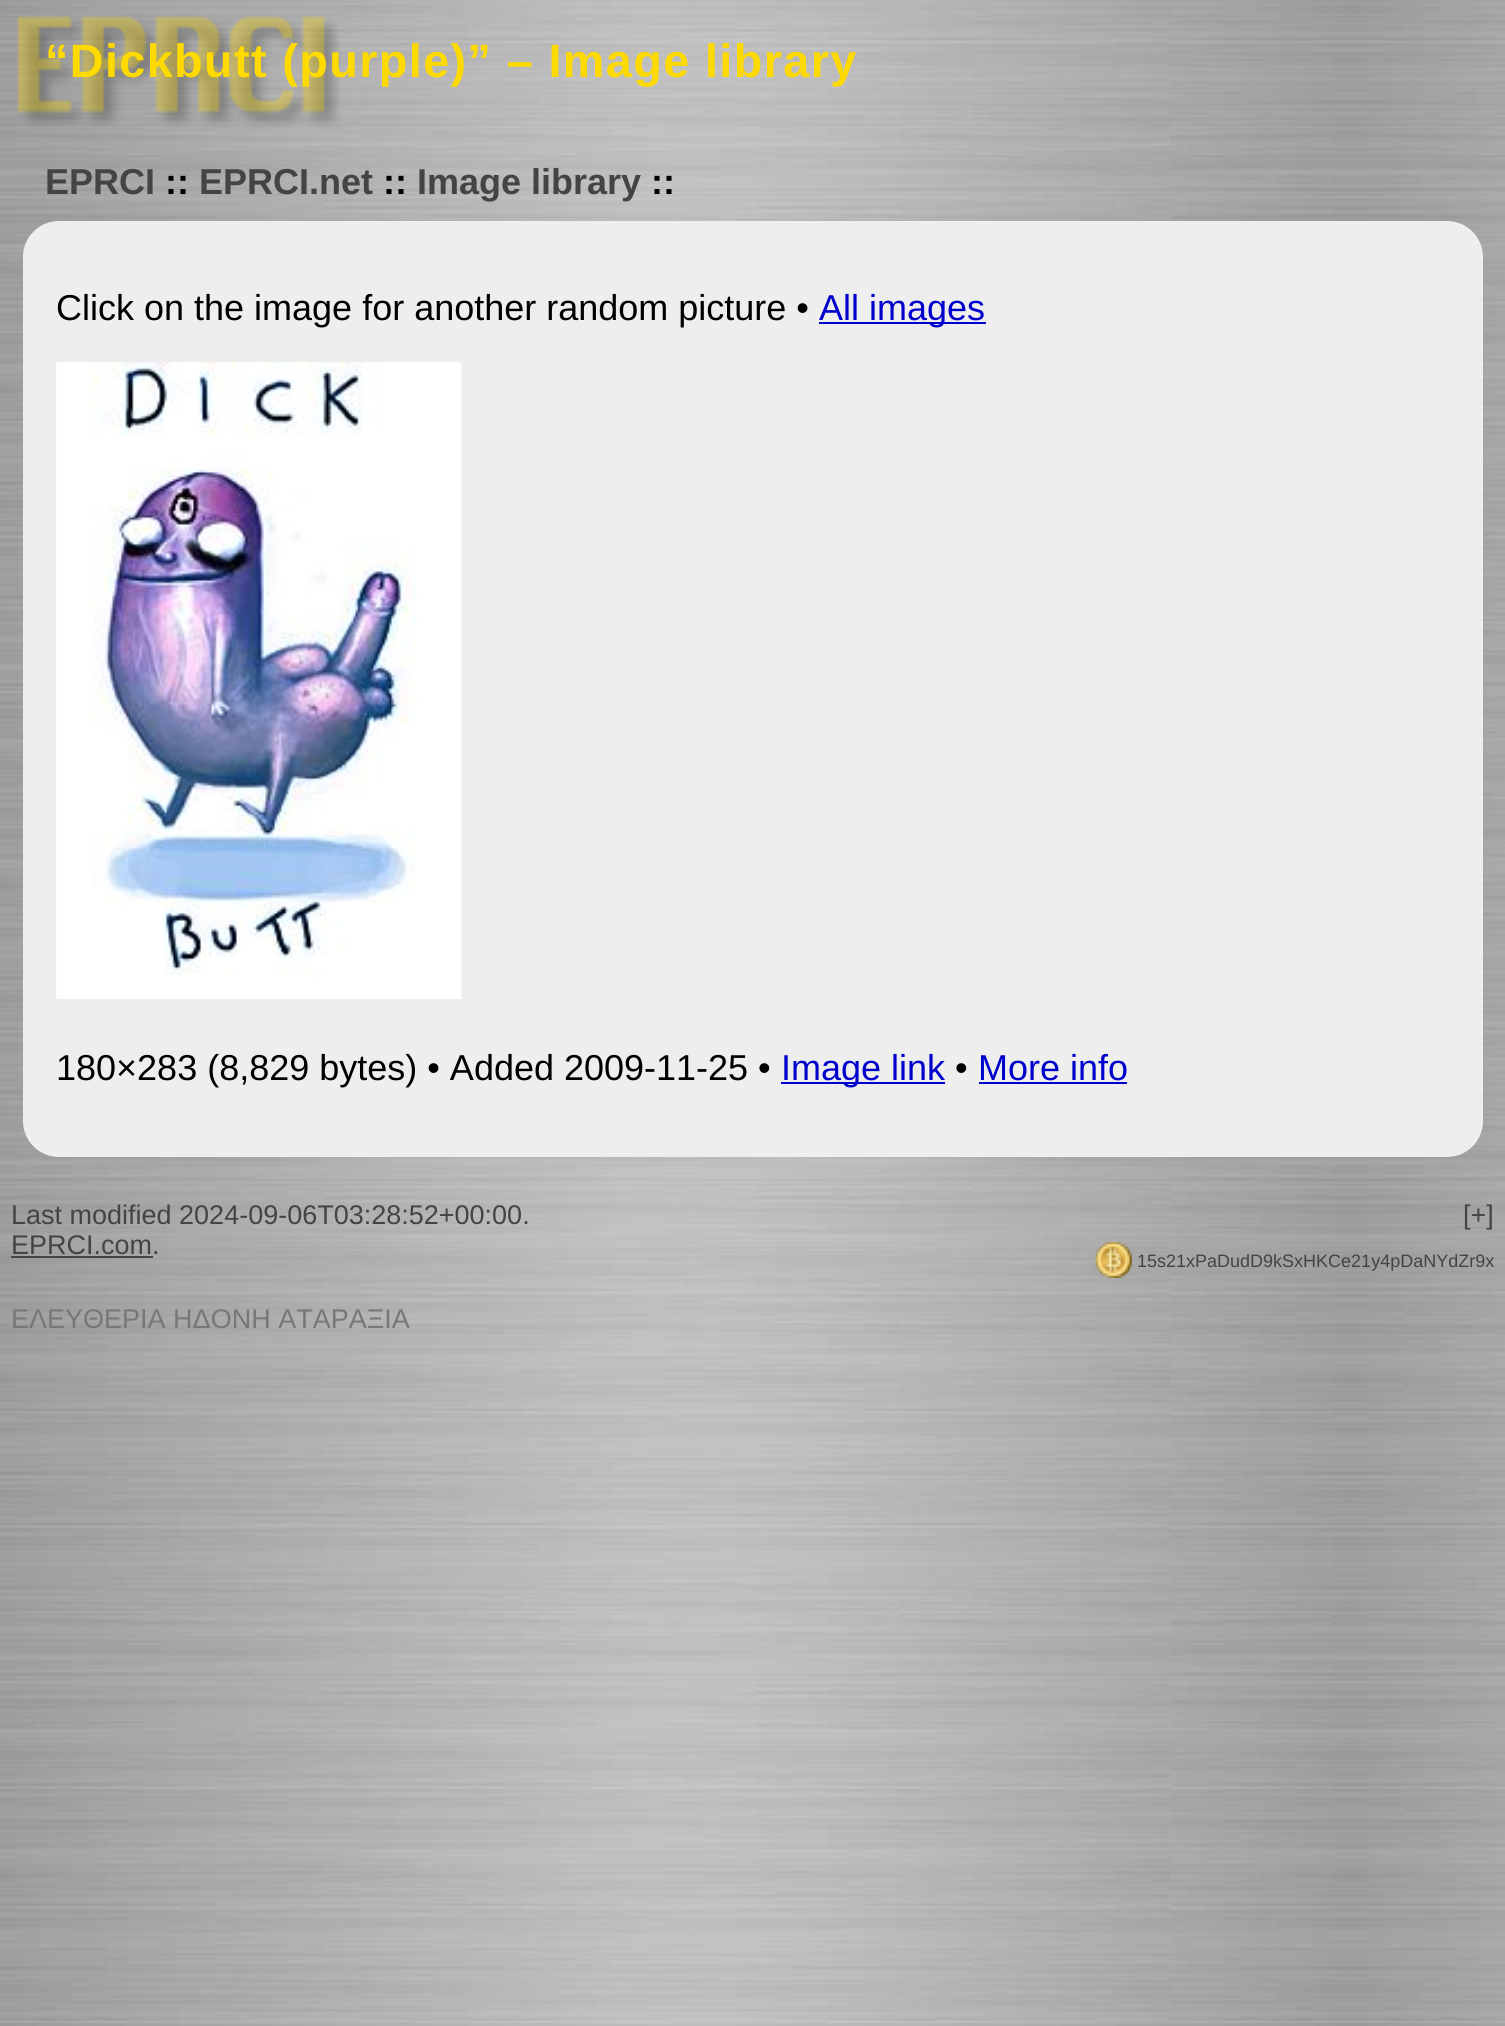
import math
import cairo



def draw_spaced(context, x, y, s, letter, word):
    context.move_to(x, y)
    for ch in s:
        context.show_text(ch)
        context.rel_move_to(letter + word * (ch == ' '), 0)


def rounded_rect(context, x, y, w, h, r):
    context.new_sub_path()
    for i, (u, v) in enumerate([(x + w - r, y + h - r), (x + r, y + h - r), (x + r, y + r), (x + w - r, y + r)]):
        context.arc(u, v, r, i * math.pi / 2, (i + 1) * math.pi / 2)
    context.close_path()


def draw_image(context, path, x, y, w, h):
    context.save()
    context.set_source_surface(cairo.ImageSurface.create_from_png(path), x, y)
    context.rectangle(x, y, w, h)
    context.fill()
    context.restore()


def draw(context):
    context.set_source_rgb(1, 1, 1)
    context.paint()
    draw_image(context, "images/1.png", 0, 0, 1505, 2026)
    draw_image(context, "images/2.png", 17, 15, 323, 113)
    context.set_source_rgb(238 / 255, 238 / 255, 238 / 255)
    rounded_rect(context, 23, 221, 1460, 936, 36)
    context.fill()
    context.set_source_rgb(0, 0, 204 / 255)
    context.rectangle(819, 322, 167, 2)
    context.fill()
    draw_image(context, "images/3.png", 56, 362, 406, 637)
    context.rectangle(781, 1082, 164, 2)
    context.fill()
    context.rectangle(979, 1082, 148, 2)
    context.fill()
    context.set_source_rgb(68 / 255, 68 / 255, 68 / 255)
    context.rectangle(11, 1256, 142, 2)
    context.fill()
    draw_image(context, "images/4.png", 1095, 1242, 37, 36)
    context.select_font_face("Liberation Sans", cairo.FontSlant.NORMAL, cairo.FontWeight.BOLD)
    context.set_font_size(46.75)
    context.set_source_rgb(1, 218 / 255, 0)
    draw_spaced(context, 45, 77, "“Dickbutt (purple)” – Image library", 1.4, 0)
    context.set_font_size(36)
    context.set_source_rgb(68 / 255, 68 / 255, 68 / 255)
    context.move_to(45, 194)
    context.show_text("EPRCI")
    context.set_source_rgb(0, 0, 0)
    context.move_to(165, 194)
    context.show_text("::")
    context.set_source_rgb(68 / 255, 68 / 255, 68 / 255)
    context.move_to(199, 194)
    context.show_text("EPRCI.net")
    context.set_source_rgb(0, 0, 0)
    context.move_to(383, 194)
    context.show_text("::")
    context.set_source_rgb(68 / 255, 68 / 255, 68 / 255)
    context.move_to(417, 194)
    context.show_text("Image library")
    context.set_source_rgb(0, 0, 0)
    context.move_to(651, 194)
    context.show_text("::")
    context.select_font_face("Liberation Sans")
    context.move_to(56, 320)
    context.show_text("Click on the image for another random picture •")
    context.set_source_rgb(0, 0, 204 / 255)
    context.move_to(819, 320)
    context.show_text("All images")
    context.set_source_rgb(0, 0, 0)
    context.move_to(56, 1080)
    context.show_text("180×283 (8,829 bytes) • Added 2009-11-25 •")
    context.set_source_rgb(0, 0, 204 / 255)
    context.move_to(781, 1080)
    context.show_text("Image link")
    context.set_source_rgb(0, 0, 0)
    context.move_to(955, 1080)
    context.show_text("•")
    context.set_source_rgb(0, 0, 204 / 255)
    context.move_to(978, 1080)
    context.show_text("More info")
    context.set_font_size(27)
    context.set_source_rgb(68 / 255, 68 / 255, 68 / 255)
    context.move_to(11, 1224)
    context.show_text("Last modified 2024-09-06T03:28:52+00:00.")
    context.move_to(1463, 1224)
    context.show_text("[+]")
    context.move_to(11, 1254)
    context.show_text("EPRCI.com.")
    context.set_font_size(18)
    context.move_to(1137, 1267)
    context.show_text("15s21xPaDudD9kSxHKCe21y4pDaNYdZr9x")
    context.set_font_size(27)
    context.set_source_rgb(119 / 255, 119 / 255, 119 / 255)
    context.move_to(11, 1328)
    context.show_text("ΕΛΕΥΘΕΡΙΑ ΗΔΟΝΗ ΑΤΑΡΑΞΙΑ")


surface = cairo.ImageSurface(cairo.Format.RGB24, 1505, 2026)
context = cairo.Context(surface)
options = cairo.FontOptions()
options.set_hint_metrics(cairo.HintMetrics.OFF)
options.set_hint_style(cairo.HintStyle.NONE)
context.set_font_options(options)
context.set_miter_limit(4)
draw(context)
surface.write_to_png("out.png")
